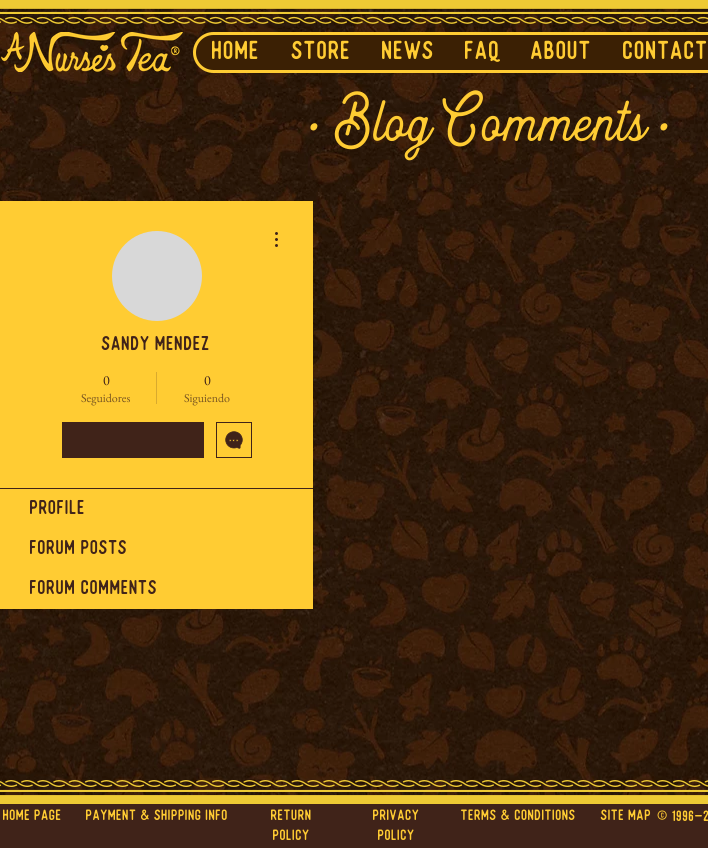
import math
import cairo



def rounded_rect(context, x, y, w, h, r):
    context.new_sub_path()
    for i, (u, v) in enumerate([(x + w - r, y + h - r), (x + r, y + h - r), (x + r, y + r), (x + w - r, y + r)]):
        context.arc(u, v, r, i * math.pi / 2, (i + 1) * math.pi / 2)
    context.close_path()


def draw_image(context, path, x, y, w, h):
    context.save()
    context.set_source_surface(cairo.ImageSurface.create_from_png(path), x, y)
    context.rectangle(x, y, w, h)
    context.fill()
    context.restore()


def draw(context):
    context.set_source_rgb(1, 1, 1)
    context.paint()
    draw_image(context, "images/1.png", 0, 8, 708, 788)
    draw_image(context, "images/2.png", 0, 0, 708, 24)
    draw_image(context, "images/3.png", 1, 32, 182, 40)
    context.set_source_rgb(59 / 255, 32 / 255, 4 / 255)
    rounded_rect(context, 194.5, 33.5, 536, 38, 19)
    context.fill_preserve()
    context.set_source_rgb(1, 204 / 255, 51 / 255)
    context.set_line_width(3)
    context.stroke()
    draw_image(context, "images/4.png", 310, 90, 340, 71)
    draw_image(context, "images/5.png", 660, 123, 8, 8)
    context.rectangle(0, 201, 313, 287)
    context.fill()
    context.set_source_rgb(216 / 255, 216 / 255, 216 / 255)
    context.arc(157, 276, 45, 0, 2 * math.pi)
    context.fill()
    draw_image(context, "images/6.png", 275, 232, 3, 15)
    context.set_source_rgb(217 / 255, 170 / 255, 46 / 255)
    context.rectangle(156, 372, 1, 32)
    context.fill()
    context.set_source_rgb(64 / 255, 35 / 255, 25 / 255)
    context.rectangle(62, 422, 142, 36)
    context.fill()
    context.rectangle(216.5, 422.5, 35, 35)
    context.set_line_width(1)
    context.stroke()
    draw_image(context, "images/7.png", 225, 431, 18, 18)
    context.set_source_rgb(1, 204 / 255, 51 / 255)
    context.rectangle(0, 489, 313, 120)
    context.fill()
    context.set_source_rgb(64 / 255, 35 / 255, 25 / 255)
    context.rectangle(0, 488, 313, 1)
    context.fill()
    draw_image(context, "images/8.png", 0, 780, 708, 24)
    context.rectangle(0, 804, 708, 44)
    context.fill()
    context.select_font_face("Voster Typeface")
    context.set_font_size(26)
    context.set_source_rgb(1, 204 / 255, 51 / 255)
    context.move_to(212, 59)
    context.show_text("Home")
    context.move_to(292, 59)
    context.show_text("STORE")
    context.move_to(382, 59)
    context.show_text("NEWS")
    context.move_to(465, 59)
    context.show_text("FAQ")
    context.move_to(531, 59)
    context.show_text("About")
    context.move_to(623, 59)
    context.show_text("Contact")
    context.set_font_size(20)
    context.set_source_rgb(64 / 255, 35 / 255, 25 / 255)
    context.move_to(102, 350)
    context.show_text("Sandy Mendez")
    context.select_font_face("EB Garamond")
    context.set_font_size(14)
    context.move_to(103, 385)
    context.show_text("0")
    context.set_font_size(12)
    context.set_source_rgb(121 / 255, 86 / 255, 33 / 255)
    context.move_to(81, 402)
    context.show_text("Seguidores")
    context.set_font_size(14)
    context.set_source_rgb(64 / 255, 35 / 255, 25 / 255)
    context.move_to(204, 385)
    context.show_text("0")
    context.set_font_size(12)
    context.set_source_rgb(121 / 255, 86 / 255, 33 / 255)
    context.move_to(184, 402)
    context.show_text("Siguiendo")
    context.select_font_face("Voster Typeface")
    context.set_font_size(20)
    context.set_source_rgb(64 / 255, 35 / 255, 25 / 255)
    context.move_to(30, 514)
    context.show_text("Profile")
    context.move_to(30, 554)
    context.show_text("Forum Posts")
    context.move_to(30, 594)
    context.show_text("Forum Comments")
    context.set_font_size(15)
    context.set_source_rgb(1, 204 / 255, 51 / 255)
    context.move_to(3, 820)
    context.show_text("Home Page")
    context.move_to(86, 820)
    context.show_text("Payment & Shipping Info")
    context.move_to(271, 820)
    context.show_text("Return")
    context.move_to(273, 840)
    context.show_text("Policy")
    context.move_to(373, 820)
    context.show_text("Privacy")
    context.move_to(378, 840)
    context.show_text("Policy")
    context.move_to(461, 820)
    context.show_text("Terms & Conditions")
    context.move_to(601, 820)
    context.show_text("Site Map")
    context.move_to(657, 821)
    context.show_text("© 1996-2")


surface = cairo.ImageSurface(cairo.Format.RGB24, 708, 848)
context = cairo.Context(surface)
options = cairo.FontOptions()
options.set_hint_metrics(cairo.HintMetrics.OFF)
options.set_hint_style(cairo.HintStyle.NONE)
context.set_font_options(options)
context.set_miter_limit(4)
draw(context)
surface.write_to_png("out.png")
